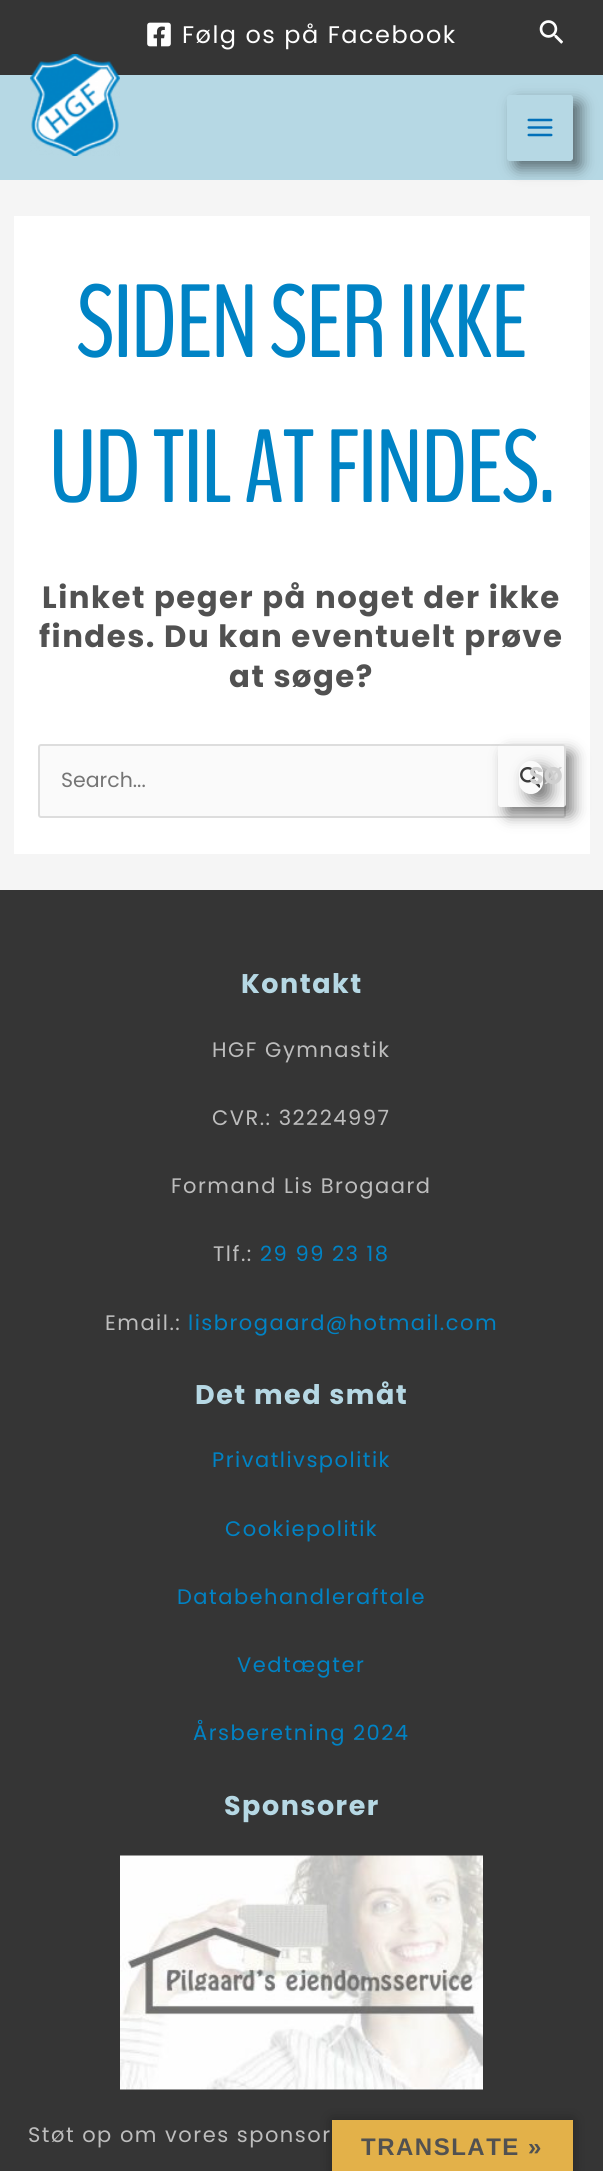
import math
import cairo



def draw_spaced(context, x, y, s, letter, word):
    context.move_to(x, y)
    for ch in s:
        context.show_text(ch)
        context.rel_move_to(letter + word * (ch == ' '), 0)


def rounded_rect(context, x, y, w, h, r):
    context.new_sub_path()
    for i, (u, v) in enumerate([(x + w - r, y + h - r), (x + r, y + h - r), (x + r, y + r), (x + w - r, y + r)]):
        context.arc(u, v, r, i * math.pi / 2, (i + 1) * math.pi / 2)
    context.close_path()


def draw_shadow(context, x, y, w, h, r, blur, alpha):
    context.push_group_with_content(cairo.Content.ALPHA)
    context.set_operator(cairo.Operator.SOURCE)
    for i in range(15, -16, -2):
        e = blur * i / 6
        if min(w, h) + 2 * e > 0:
            context.set_source_rgba(0, 0, 0, alpha * math.erfc((i - 1) / 8.5) / 2)
            rounded_rect(context, x - e, y - e, w + 2 * e, h + 2 * e, max(0, min(r + e + blur * .6, min(w, h) / 2 + e)))
            context.fill()
    context.mask(context.pop_group())


def draw_image(context, path, x, y, w, h):
    context.save()
    context.set_source_surface(cairo.ImageSurface.create_from_png(path), x, y)
    context.rectangle(x, y, w, h)
    context.fill()
    context.restore()


def draw(context):
    context.set_source_rgb(245 / 255, 245 / 255, 245 / 255)
    context.paint()
    context.set_source_rgb(53 / 255, 53 / 255, 53 / 255)
    context.rectangle(0, 0, 603, 75)
    context.fill()
    draw_image(context, "images/1.png", 147, 22, 24, 25)
    draw_image(context, "images/2.png", 539, 20, 24, 24)
    context.set_source_rgb(182 / 255, 216 / 255, 228 / 255)
    context.rectangle(0, 75, 603, 105)
    context.fill()
    draw_image(context, "images/3.png", 30, 54, 90, 102)
    context.save()
    context.set_fill_rule(cairo.FillRule.EVEN_ODD)
    context.new_path()
    context.move_to(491, 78)
    context.line_to(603, 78)
    context.line_to(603, 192)
    context.line_to(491, 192)
    context.close_path()
    context.move_to(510, 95)
    context.line_to(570, 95)
    context.curve_to(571.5, 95, 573, 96.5, 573, 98)
    context.line_to(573, 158)
    context.curve_to(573, 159.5, 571.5, 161, 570, 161)
    context.line_to(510, 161)
    context.curve_to(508.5, 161, 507, 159.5, 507, 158)
    context.line_to(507, 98)
    context.curve_to(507, 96.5, 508.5, 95, 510, 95)
    context.close_path()
    context.clip()
    context.set_source_rgb(0, 0, 0)
    draw_shadow(context, 515, 102, 66, 66, 3, 7.5, 0.5)
    context.restore()
    draw_image(context, "images/4.png", 527, 118, 26, 19)
    context.set_source_rgb(1, 1, 1)
    context.rectangle(14, 216, 576, 638)
    context.fill()
    context.set_source_rgb(250 / 255, 250 / 255, 250 / 255)
    rounded_rect(context, 39, 745, 526, 72, 2)
    context.fill_preserve()
    context.set_source_rgb(221 / 255, 221 / 255, 221 / 255)
    context.stroke()
    context.save()
    context.set_fill_rule(cairo.FillRule.EVEN_ODD)
    context.new_path()
    context.move_to(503, 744)
    context.line_to(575, 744)
    context.line_to(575, 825)
    context.line_to(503, 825)
    context.close_path()
    context.move_to(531, 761)
    context.curve_to(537.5, 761, 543, 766.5, 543, 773)
    context.line_to(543, 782)
    context.curve_to(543, 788.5, 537.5, 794, 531, 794)
    context.curve_to(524.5, 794, 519, 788.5, 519, 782)
    context.line_to(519, 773)
    context.curve_to(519, 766.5, 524.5, 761, 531, 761)
    context.close_path()
    context.clip()
    context.set_source_rgb(0, 0, 0)
    draw_shadow(context, 527, 768, 24, 33, 12, 7.5, 0.5)
    context.restore()
    draw_image(context, "images/5.png", 520, 767, 20, 21)
    context.save()
    context.set_fill_rule(cairo.FillRule.EVEN_ODD)
    context.new_path()
    context.move_to(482, 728)
    context.line_to(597, 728)
    context.line_to(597, 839)
    context.line_to(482, 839)
    context.close_path()
    context.move_to(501, 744)
    context.line_to(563, 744)
    context.curve_to(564.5, 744, 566, 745.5, 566, 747)
    context.line_to(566, 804)
    context.curve_to(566, 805.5, 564.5, 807, 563, 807)
    context.line_to(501, 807)
    context.curve_to(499.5, 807, 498, 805.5, 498, 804)
    context.line_to(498, 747)
    context.curve_to(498, 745.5, 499.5, 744, 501, 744)
    context.close_path()
    context.clip()
    context.set_source_rgb(0, 0, 0)
    draw_shadow(context, 506, 752, 67, 63, 3, 7.5, 0.5)
    context.restore()
    context.set_source_rgb(53 / 255, 53 / 255, 53 / 255)
    context.rectangle(0, 890, 603, 1281)
    context.fill()
    draw_image(context, "images/6.png", 120, 1855, 363, 235)
    context.set_source_rgb(0, 0, 0)
    draw_shadow(context, 332, 2120, 241, 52, 0, 7, 0.3)
    context.set_source_rgb(227 / 255, 177 / 255, 73 / 255)
    context.rectangle(332, 2120, 241, 51)
    context.fill()
    context.select_font_face("Poppins")
    context.set_font_size(24)
    context.set_source_rgb(1, 1, 1)
    draw_spaced(context, 182, 43, "Følg os på Facebook", 1.5, 0)
    context.select_font_face("BenchNine")
    context.set_font_size(103.5)
    context.set_source_rgb(0, 131 / 255, 197 / 255)
    draw_spaced(context, 76, 357, "SIDEN SER IKKE", -1.5, 0)
    draw_spaced(context, 49, 502, "UD TIL AT FINDES.", -1.5, 0)
    context.select_font_face("Poppins", cairo.FontSlant.NORMAL, cairo.FontWeight.BOLD)
    context.set_font_size(30.75)
    context.set_source_rgb(81 / 255, 81 / 255, 81 / 255)
    draw_spaced(context, 42, 608, "Linket peger på noget der ikke", 1.5, 0)
    draw_spaced(context, 39, 647, "findes. Du kan eventuelt prøve", 1.5, 0)
    draw_spaced(context, 229, 687, "at søge?", 1.5, 0)
    context.select_font_face("Poppins")
    context.set_font_size(20.5)
    context.set_source_rgb(117 / 255, 117 / 255, 117 / 255)
    context.move_to(61, 787)
    context.show_text("Search...")
    context.select_font_face("Poppins", cairo.FontSlant.NORMAL, cairo.FontWeight.BOLD)
    context.set_font_size(24)
    context.set_source_rgb(207 / 255, 207 / 255, 207 / 255)
    context.move_to(529, 784)
    context.show_text("SØ")
    context.set_font_size(27)
    context.set_source_rgb(182 / 255, 216 / 255, 228 / 255)
    draw_spaced(context, 241, 993, "Kontakt", 1.5, 0)
    context.select_font_face("Poppins")
    context.set_font_size(21)
    context.set_source_rgb(189 / 255, 189 / 255, 189 / 255)
    draw_spaced(context, 212, 1057, "HGF Gymnastik", 1.5, 0)
    draw_spaced(context, 212, 1125, "CVR.: 32224997", 1.5, 0)
    draw_spaced(context, 171, 1193, "Formand Lis Brogaard", 1.5, 0)
    draw_spaced(context, 213, 1261, "Tlf.:", 1.5, 0)
    context.set_source_rgb(0, 131 / 255, 197 / 255)
    draw_spaced(context, 260, 1261, "29 99 23 18", 1.5, 0)
    context.set_source_rgb(189 / 255, 189 / 255, 189 / 255)
    draw_spaced(context, 105, 1330, "Email.:", 1.5, 0)
    context.set_source_rgb(0, 131 / 255, 197 / 255)
    draw_spaced(context, 188, 1330, "lisbrogaard@hotmail.com", 1.5, 0)
    context.select_font_face("Poppins", cairo.FontSlant.NORMAL, cairo.FontWeight.BOLD)
    context.set_font_size(27)
    context.set_source_rgb(182 / 255, 216 / 255, 228 / 255)
    draw_spaced(context, 195, 1404, "Det med småt", 1.5, 0)
    context.select_font_face("Poppins")
    context.set_font_size(21)
    context.set_source_rgb(0, 131 / 255, 197 / 255)
    draw_spaced(context, 212, 1467, "Privatlivspolitik", 1.5, 0)
    draw_spaced(context, 225, 1536, "Cookiepolitik", 1.5, 0)
    draw_spaced(context, 177, 1604, "Databehandleraftale", 1.5, 0)
    draw_spaced(context, 237, 1672, "Vedtægter", 1.5, 0)
    draw_spaced(context, 193, 1740, "Årsberetning 2024", 1.5, 0)
    context.select_font_face("Poppins", cairo.FontSlant.NORMAL, cairo.FontWeight.BOLD)
    context.set_font_size(27)
    context.set_source_rgb(182 / 255, 216 / 255, 228 / 255)
    draw_spaced(context, 224, 1815, "Sponsorer", 1.5, 0)
    context.select_font_face("Poppins")
    context.set_font_size(21)
    context.set_source_rgb(189 / 255, 189 / 255, 189 / 255)
    draw_spaced(context, 28, 2142, "Støt op om vores sponsor", 1.5, 0)
    context.select_font_face("Liberation Sans", cairo.FontSlant.NORMAL, cairo.FontWeight.BOLD)
    context.set_font_size(24)
    context.set_source_rgb(81 / 255, 81 / 255, 81 / 255)
    draw_spaced(context, 361, 2155, "TRANSLATE »", 1.5, 0)


surface = cairo.ImageSurface(cairo.Format.RGB24, 603, 2171)
context = cairo.Context(surface)
options = cairo.FontOptions()
options.set_hint_metrics(cairo.HintMetrics.OFF)
options.set_hint_style(cairo.HintStyle.NONE)
context.set_font_options(options)
context.set_miter_limit(4)
draw(context)
surface.write_to_png("out.png")
